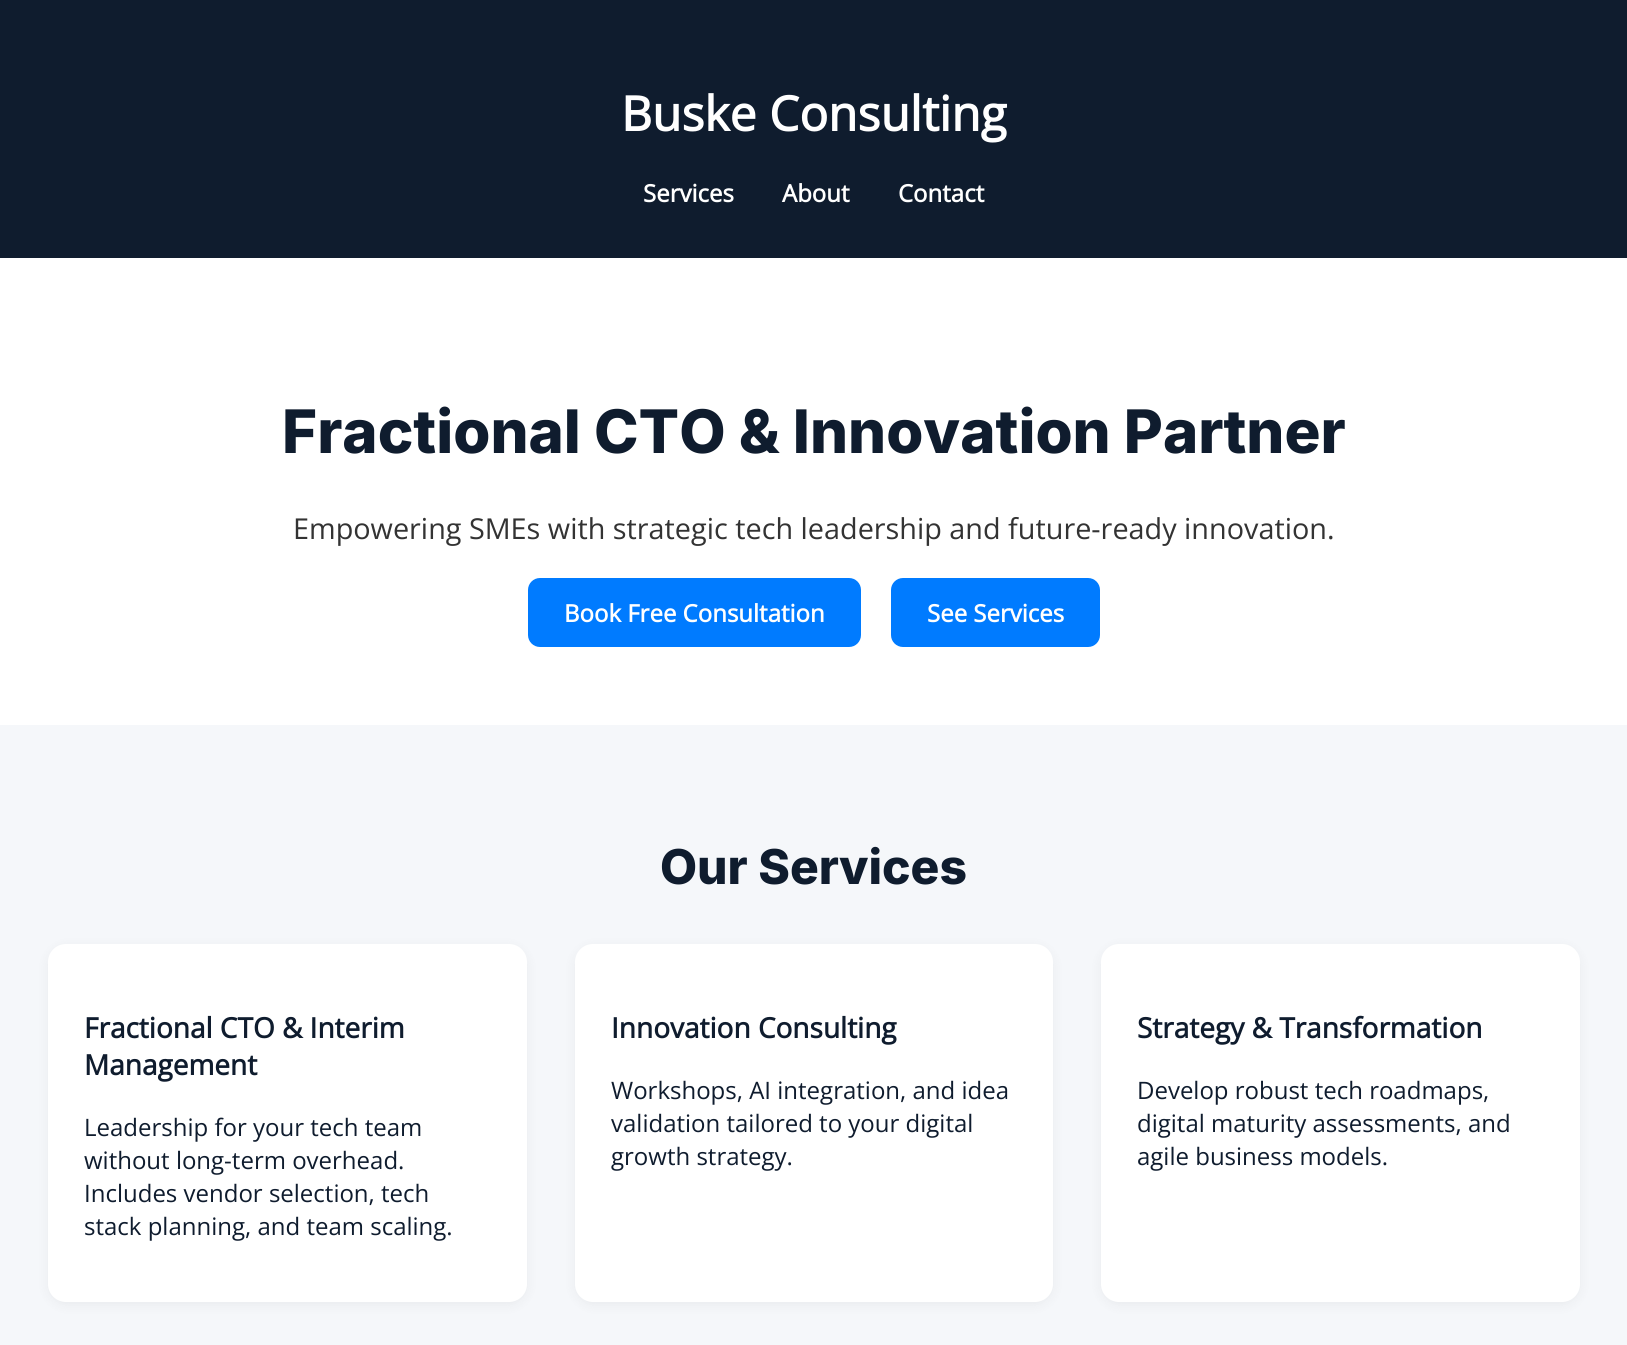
import math
import cairo



def rounded_rect(context, x, y, w, h, r):
    context.new_sub_path()
    for i, (u, v) in enumerate([(x + w - r, y + h - r), (x + r, y + h - r), (x + r, y + r), (x + w - r, y + r)]):
        context.arc(u, v, r, i * math.pi / 2, (i + 1) * math.pi / 2)
    context.close_path()


def draw_shadow(context, x, y, w, h, r, blur, alpha):
    context.push_group_with_content(cairo.Content.ALPHA)
    context.set_operator(cairo.Operator.SOURCE)
    for i in range(15, -16, -2):
        e = blur * i / 6
        if min(w, h) + 2 * e > 0:
            context.set_source_rgba(0, 0, 0, alpha * math.erfc((i - 1) / 8.5) / 2)
            rounded_rect(context, x - e, y - e, w + 2 * e, h + 2 * e, max(0, min(r + e + blur * .6, min(w, h) / 2 + e)))
            context.fill()
    context.mask(context.pop_group())


def draw(context):
    context.set_source_rgb(245 / 255, 247 / 255, 250 / 255)
    context.paint()
    context.set_source_rgb(15 / 255, 28 / 255, 46 / 255)
    context.rectangle(0, 0, 1627, 258)
    context.fill()
    context.set_source_rgb(1, 1, 1)
    context.rectangle(0, 258, 1627, 467)
    context.fill()
    context.set_source_rgb(0, 123 / 255, 1)
    rounded_rect(context, 528, 578, 333, 69, 12)
    context.fill()
    rounded_rect(context, 891, 578, 209, 69, 12)
    context.fill()
    context.set_source_rgb(0, 0, 0)
    draw_shadow(context, 48, 947, 479, 358, 18, 6, 0.05)
    context.set_source_rgb(1, 1, 1)
    rounded_rect(context, 48, 944, 479, 358, 18)
    context.fill()
    context.set_source_rgb(0, 0, 0)
    draw_shadow(context, 575, 947, 478, 358, 18, 6, 0.05)
    context.set_source_rgb(1, 1, 1)
    rounded_rect(context, 575, 944, 478, 358, 18)
    context.fill()
    context.set_source_rgb(0, 0, 0)
    draw_shadow(context, 1101, 947, 479, 358, 18, 6, 0.05)
    context.set_source_rgb(1, 1, 1)
    rounded_rect(context, 1101, 944, 479, 358, 18)
    context.fill()
    context.select_font_face("Open Sans", cairo.FontSlant.NORMAL, cairo.FontWeight.BOLD)
    context.set_font_size(48)
    context.move_to(621, 131)
    context.show_text("Buske Consulting")
    context.set_font_size(24)
    context.move_to(643, 202)
    context.show_text("Services")
    context.move_to(782, 202)
    context.show_text("About")
    context.move_to(898, 202)
    context.show_text("Contact")
    context.select_font_face("Inter ExtraBold")
    context.set_font_size(60)
    context.set_source_rgb(15 / 255, 28 / 255, 46 / 255)
    context.move_to(282, 453)
    context.show_text("Fractional CTO & Innovation Partner")
    context.select_font_face("Open Sans")
    context.set_font_size(28.8)
    context.set_source_rgb(51 / 255, 51 / 255, 51 / 255)
    context.move_to(293, 539)
    context.show_text("Empowering SMEs with strategic tech leadership and future-ready innovation.")
    context.select_font_face("Open Sans", cairo.FontSlant.NORMAL, cairo.FontWeight.BOLD)
    context.set_font_size(24)
    context.set_source_rgb(1, 1, 1)
    context.move_to(564, 622)
    context.show_text("Book Free Consultation")
    context.move_to(927, 622)
    context.show_text("See Services")
    context.select_font_face("Inter ExtraBold")
    context.set_font_size(48)
    context.set_source_rgb(15 / 255, 28 / 255, 46 / 255)
    context.move_to(660, 884)
    context.show_text("Our Services")
    context.select_font_face("Open Sans", cairo.FontSlant.NORMAL, cairo.FontWeight.BOLD)
    context.set_font_size(28)
    context.move_to(84, 1038)
    context.show_text("Fractional CTO & Interim")
    context.move_to(84, 1075)
    context.show_text("Management")
    context.select_font_face("Open Sans")
    context.set_font_size(24)
    context.move_to(84, 1136)
    context.show_text("Leadership for your tech team")
    context.move_to(84, 1169)
    context.show_text("without long-term overhead.")
    context.move_to(84, 1202)
    context.show_text("Includes vendor selection, tech")
    context.move_to(84, 1235)
    context.show_text("stack planning, and team scaling.")
    context.select_font_face("Open Sans", cairo.FontSlant.NORMAL, cairo.FontWeight.BOLD)
    context.set_font_size(28)
    context.move_to(611, 1038)
    context.show_text("Innovation Consulting")
    context.select_font_face("Open Sans")
    context.set_font_size(24)
    context.move_to(611, 1099)
    context.show_text("Workshops, AI integration, and idea")
    context.move_to(611, 1132)
    context.show_text("validation tailored to your digital")
    context.move_to(611, 1165)
    context.show_text("growth strategy.")
    context.select_font_face("Open Sans", cairo.FontSlant.NORMAL, cairo.FontWeight.BOLD)
    context.set_font_size(28)
    context.move_to(1137, 1038)
    context.show_text("Strategy & Transformation")
    context.select_font_face("Open Sans")
    context.set_font_size(24)
    context.move_to(1137, 1099)
    context.show_text("Develop robust tech roadmaps,")
    context.move_to(1137, 1132)
    context.show_text("digital maturity assessments, and")
    context.move_to(1137, 1165)
    context.show_text("agile business models.")


surface = cairo.ImageSurface(cairo.Format.RGB24, 1627, 1345)
context = cairo.Context(surface)
options = cairo.FontOptions()
options.set_hint_metrics(cairo.HintMetrics.OFF)
options.set_hint_style(cairo.HintStyle.NONE)
context.set_font_options(options)
context.set_miter_limit(4)
draw(context)
surface.write_to_png("out.png")
